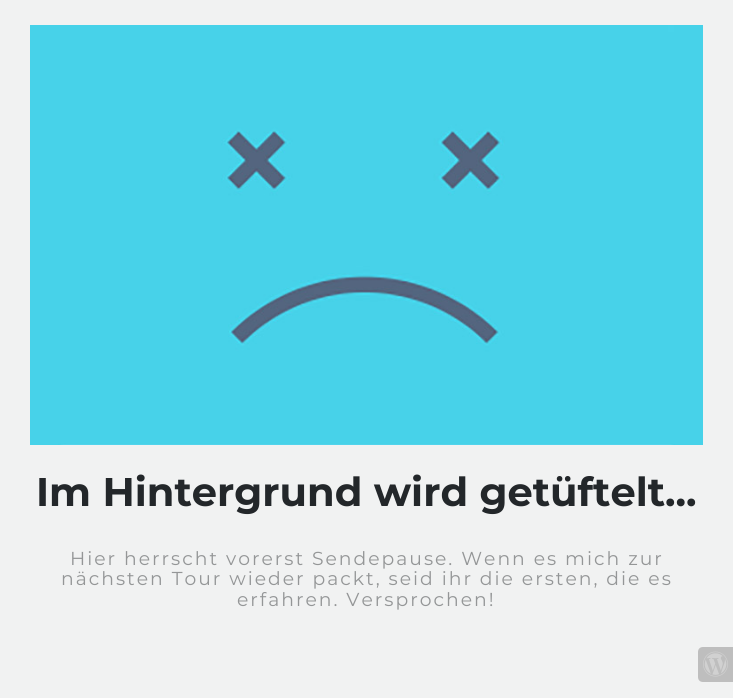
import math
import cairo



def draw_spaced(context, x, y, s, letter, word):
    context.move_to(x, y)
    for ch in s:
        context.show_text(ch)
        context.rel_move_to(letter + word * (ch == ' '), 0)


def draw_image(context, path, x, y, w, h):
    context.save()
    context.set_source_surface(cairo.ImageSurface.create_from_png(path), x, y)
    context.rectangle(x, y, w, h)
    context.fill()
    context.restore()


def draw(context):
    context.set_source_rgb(241 / 255, 242 / 255, 242 / 255)
    context.paint()
    draw_image(context, "images/1.png", 30, 25, 673, 420)
    context.set_source_rgb(190 / 255, 190 / 255, 190 / 255)
    context.new_path()
    context.move_to(703, 647)
    context.line_to(733, 647)
    context.line_to(733, 682)
    context.line_to(703, 682)
    context.curve_to(700, 682, 698, 680, 698, 677)
    context.line_to(698, 652)
    context.curve_to(698, 649, 700, 647, 703, 647)
    context.close_path()
    context.fill()
    draw_image(context, "images/2.png", 703, 651, 25, 26)
    context.select_font_face("Montserrat", cairo.FontSlant.NORMAL, cairo.FontWeight.BOLD)
    context.set_font_size(40)
    context.set_source_rgb(35 / 255, 39 / 255, 42 / 255)
    context.move_to(36, 506)
    context.show_text("Im Hintergrund wird getüftelt...")
    context.select_font_face("Montserrat")
    context.set_font_size(18.75)
    context.set_source_rgb(148 / 255, 150 / 255, 151 / 255)
    draw_spaced(context, 70, 565, "Hier herrscht vorerst Sendepause. Wenn es mich zur", 2, 0)
    draw_spaced(context, 61, 585, "nächsten Tour wieder packt, seid ihr die ersten, die es", 2, 0)
    draw_spaced(context, 237, 606, "erfahren. Versprochen!", 2, 0)


surface = cairo.ImageSurface(cairo.Format.RGB24, 733, 698)
context = cairo.Context(surface)
options = cairo.FontOptions()
options.set_hint_metrics(cairo.HintMetrics.OFF)
options.set_hint_style(cairo.HintStyle.NONE)
context.set_font_options(options)
context.set_miter_limit(4)
draw(context)
surface.write_to_png("out.png")
